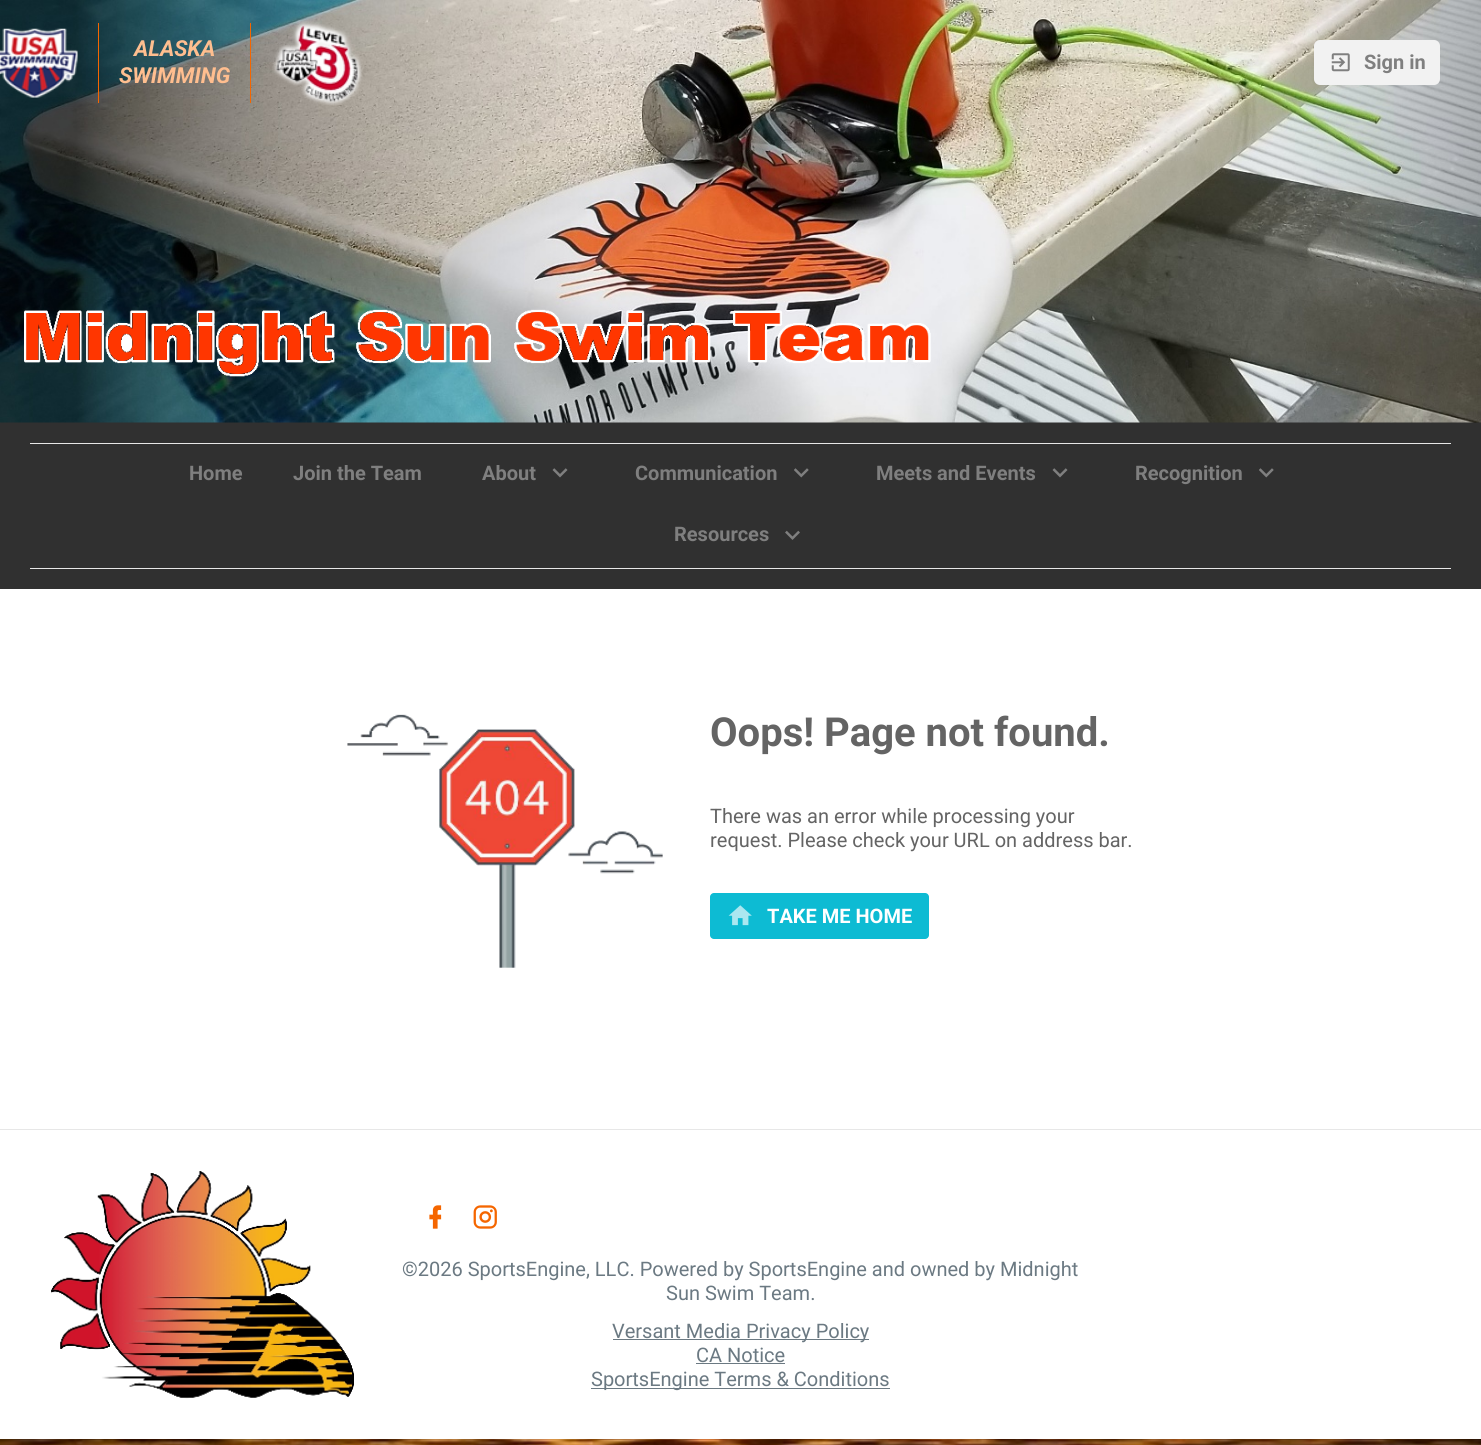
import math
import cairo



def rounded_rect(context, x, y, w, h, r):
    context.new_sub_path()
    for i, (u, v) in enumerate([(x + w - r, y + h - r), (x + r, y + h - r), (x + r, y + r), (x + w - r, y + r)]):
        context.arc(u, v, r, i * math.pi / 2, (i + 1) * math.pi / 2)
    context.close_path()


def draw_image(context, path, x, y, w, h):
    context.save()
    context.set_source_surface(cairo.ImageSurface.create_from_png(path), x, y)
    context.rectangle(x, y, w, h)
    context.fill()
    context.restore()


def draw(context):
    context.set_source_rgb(1, 1, 1)
    context.paint()
    draw_image(context, "images/1.png", 0, 1439, 1481, 6)
    context.set_source_rgb(48 / 255, 48 / 255, 48 / 255)
    context.rectangle(0, 422, 1481, 167)
    context.fill()
    draw_image(context, "images/2.png", 0, 0, 1481, 423)
    draw_image(context, "images/3.png", 0, 28, 78, 70)
    context.set_source_rgb(245 / 255, 102 / 255, 0)
    context.rectangle(98, 23, 1, 80)
    context.fill()
    context.rectangle(250, 23, 1, 80)
    context.fill()
    draw_image(context, "images/4.png", 272, 21, 91, 84)
    context.set_source_rgb(242 / 255, 242 / 255, 242 / 255)
    rounded_rect(context, 1314, 40, 126, 45, 6)
    context.fill()
    draw_image(context, "images/5.png", 1331, 53, 19, 19)
    draw_image(context, "images/6.png", 24, 309, 907, 68)
    context.set_source_rgb(231 / 255, 231 / 255, 231 / 255)
    context.rectangle(30, 443, 1421, 1)
    context.fill()
    context.rectangle(30, 568, 1421, 1)
    context.fill()
    draw_image(context, "images/7.png", 552, 468, 16, 10)
    draw_image(context, "images/8.png", 794, 468, 15, 10)
    draw_image(context, "images/7.png", 1052, 468, 16, 10)
    draw_image(context, "images/8.png", 1259, 468, 15, 10)
    draw_image(context, "images/9.png", 785, 530, 15, 10)
    draw_image(context, "images/10.png", 347, 714, 316, 254)
    context.set_source_rgb(13 / 255, 187 / 255, 211 / 255)
    rounded_rect(context, 710, 893, 219, 46, 4)
    context.fill()
    draw_image(context, "images/11.png", 728, 905, 24, 21)
    context.set_source_rgb(231 / 255, 231 / 255, 231 / 255)
    context.rectangle(0, 1129, 1481, 1)
    context.fill()
    draw_image(context, "images/12.png", 51, 1171, 303, 228)
    draw_image(context, "images/13.png", 429, 1205, 13, 24)
    draw_image(context, "images/14.png", 473, 1205, 24, 24)
    context.set_source_rgb(107 / 255, 121 / 255, 130 / 255)
    context.rectangle(613, 1339, 256, 1)
    context.fill()
    context.rectangle(696, 1363, 89, 1)
    context.fill()
    context.rectangle(591, 1388, 299, 1)
    context.fill()
    context.select_font_face("Roboto", cairo.FontSlant.ITALIC, cairo.FontWeight.BOLD)
    context.set_font_size(22)
    context.set_source_rgb(1, 190 / 255, 143 / 255)
    context.move_to(134, 56)
    context.show_text("ALASKA")
    context.move_to(119, 83)
    context.show_text("SWIMMING")
    context.select_font_face("Roboto", cairo.FontSlant.NORMAL, cairo.FontWeight.BOLD)
    context.set_font_size(20)
    context.set_source_rgb(127 / 255, 127 / 255, 127 / 255)
    context.move_to(1364, 69)
    context.show_text("Sign in")
    context.move_to(189, 480)
    context.show_text("Home")
    context.move_to(293, 480)
    context.show_text("Join the Team")
    context.move_to(482, 480)
    context.show_text("About")
    context.move_to(635, 480)
    context.show_text("Communication")
    context.move_to(876, 480)
    context.show_text("Meets and Events")
    context.move_to(1135, 480)
    context.show_text("Recognition")
    context.move_to(674, 541)
    context.show_text("Resources")
    context.set_font_size(40)
    context.set_source_rgb(100 / 255, 100 / 255, 100 / 255)
    context.move_to(710, 746)
    context.show_text("Oops! Page not found.")
    context.select_font_face("Roboto")
    context.set_font_size(20)
    context.move_to(710, 823)
    context.show_text("There was an error while processing your")
    context.move_to(710, 847)
    context.show_text("request. Please check your URL on address bar.")
    context.select_font_face("Roboto", cairo.FontSlant.NORMAL, cairo.FontWeight.BOLD)
    context.set_source_rgb(1, 1, 1)
    context.move_to(767, 923)
    context.show_text("TAKE ME HOME")
    context.select_font_face("Roboto")
    context.set_source_rgb(107 / 255, 121 / 255, 130 / 255)
    context.move_to(402, 1276)
    context.show_text("©2026 SportsEngine, LLC. Powered by SportsEngine and owned by Midnight")
    context.move_to(666, 1300)
    context.show_text("Sun Swim Team.")
    context.move_to(612, 1338)
    context.show_text("Versant Media Privacy Policy")
    context.move_to(696, 1362)
    context.show_text("CA Notice")
    context.move_to(591, 1386)
    context.show_text("SportsEngine Terms & Conditions")


surface = cairo.ImageSurface(cairo.Format.RGB24, 1481, 1445)
context = cairo.Context(surface)
options = cairo.FontOptions()
options.set_hint_metrics(cairo.HintMetrics.OFF)
options.set_hint_style(cairo.HintStyle.NONE)
context.set_font_options(options)
context.set_miter_limit(4)
draw(context)
surface.write_to_png("out.png")
